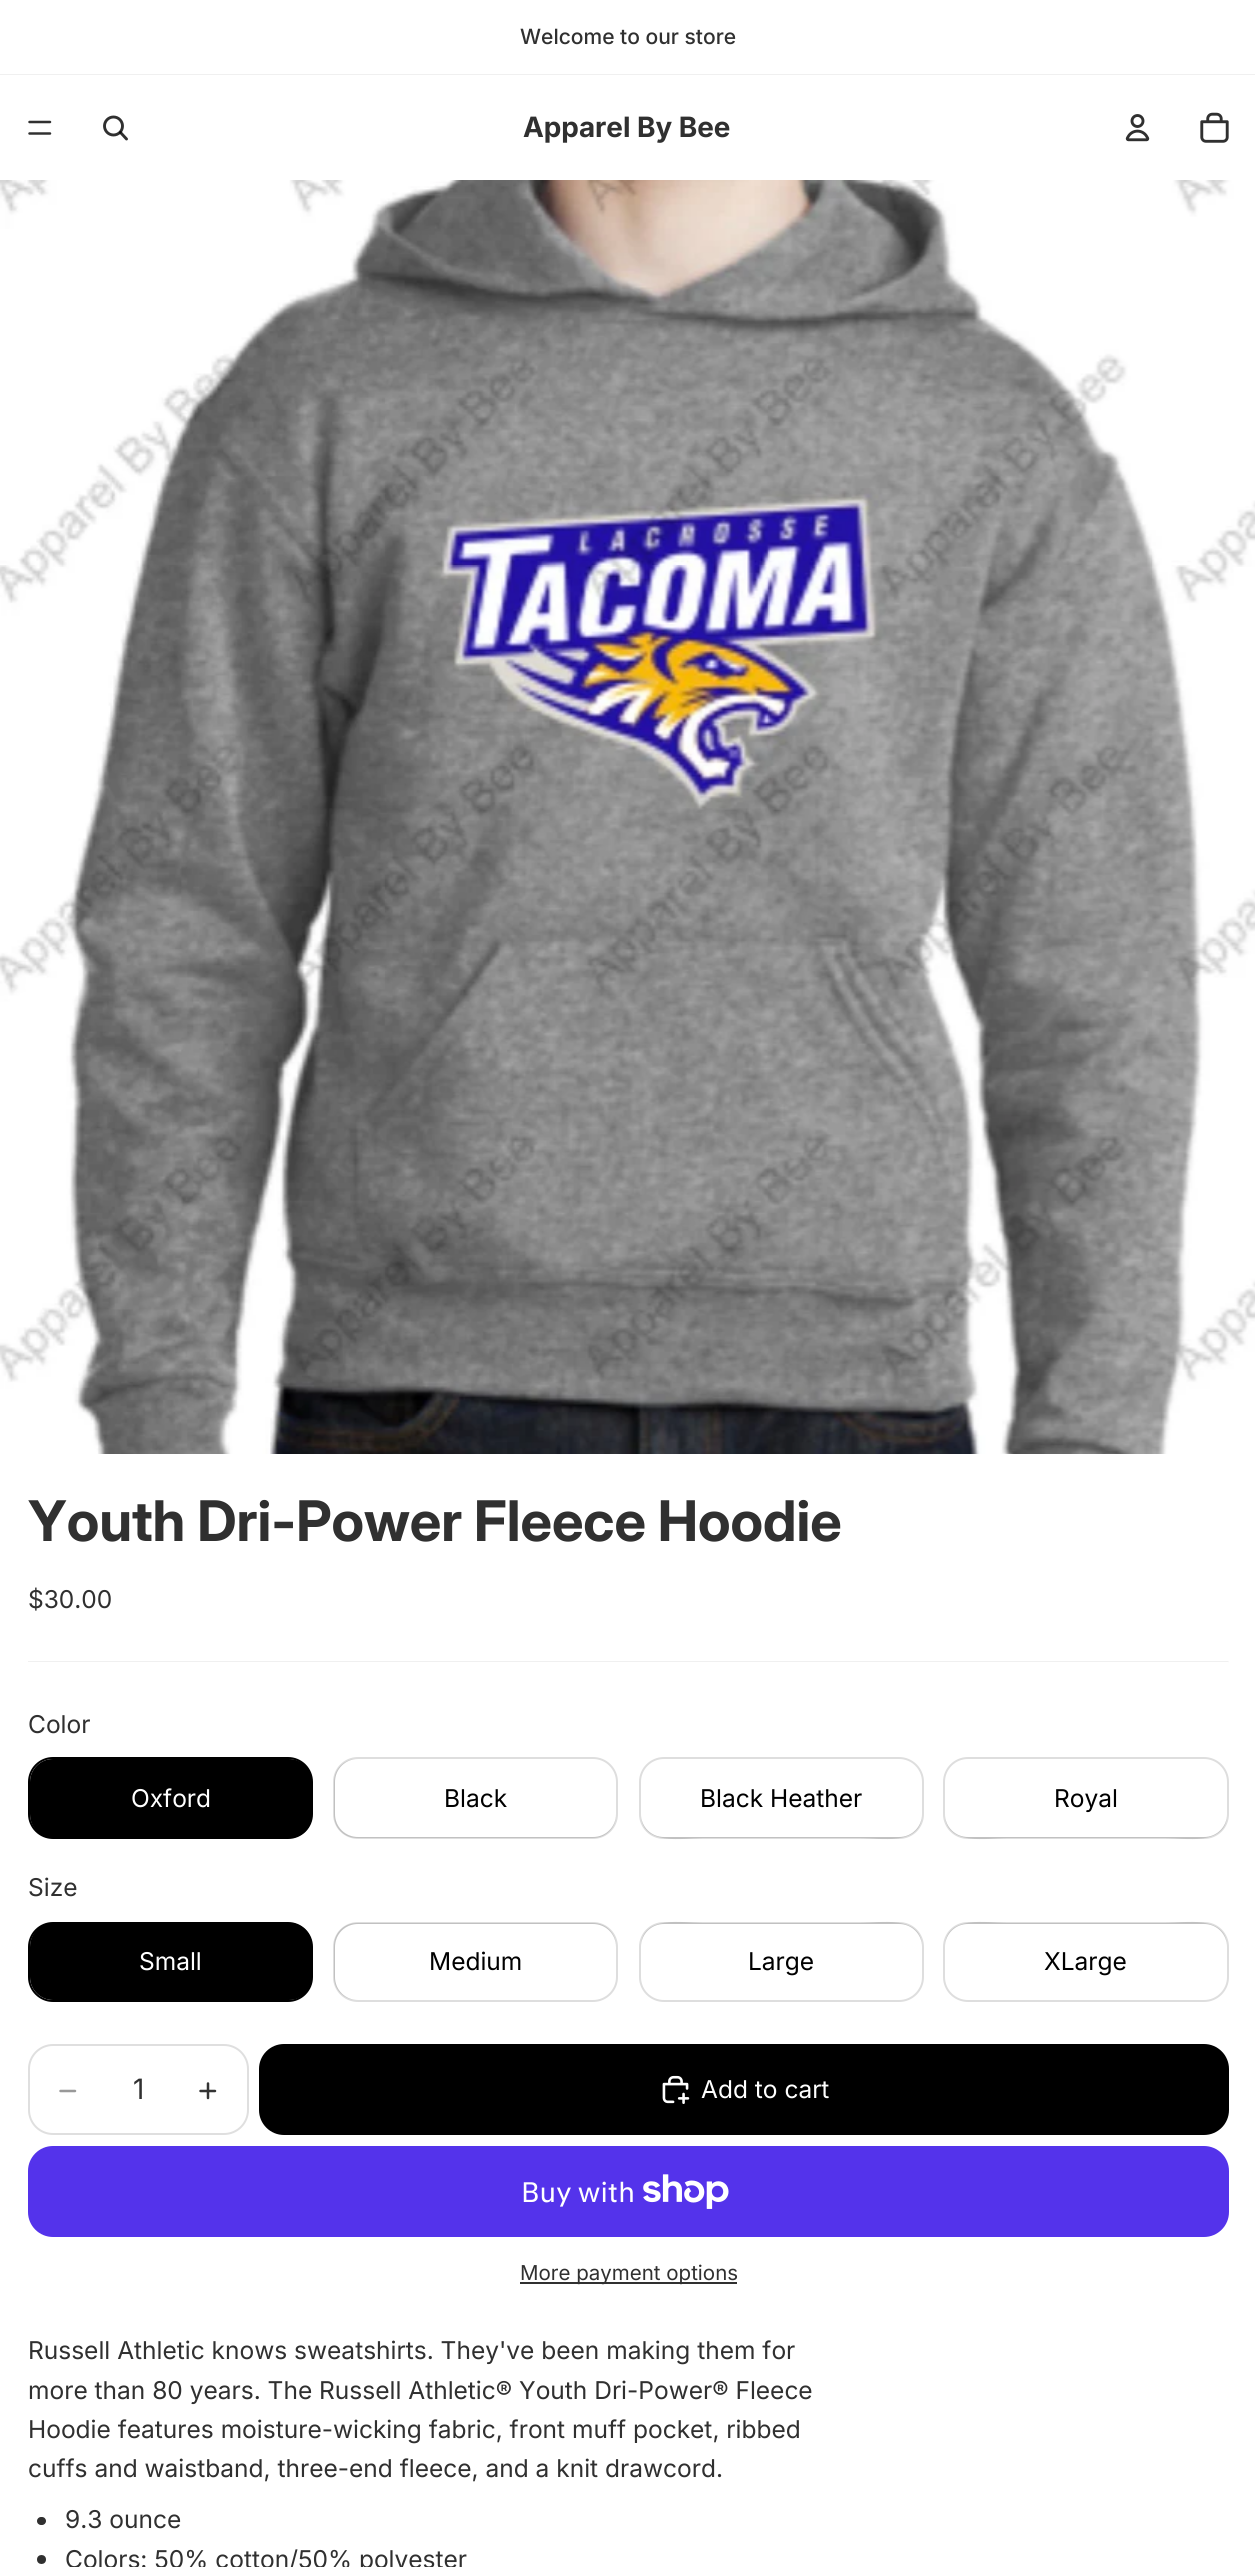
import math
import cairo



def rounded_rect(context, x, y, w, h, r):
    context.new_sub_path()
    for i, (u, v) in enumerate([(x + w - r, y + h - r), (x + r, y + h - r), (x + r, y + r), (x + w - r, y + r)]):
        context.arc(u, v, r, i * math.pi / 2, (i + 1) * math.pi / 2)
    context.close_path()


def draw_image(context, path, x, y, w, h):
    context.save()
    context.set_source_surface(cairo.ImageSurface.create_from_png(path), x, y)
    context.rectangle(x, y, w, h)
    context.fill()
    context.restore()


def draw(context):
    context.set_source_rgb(1, 1, 1)
    context.paint()
    context.set_source_rgb(240 / 255, 240 / 255, 240 / 255)
    context.rectangle(0, 74, 1255, 1)
    context.fill()
    context.new_path()
    context.move_to(29.5, 122)
    context.line_to(50, 122)
    context.move_to(29.5, 133.5)
    context.line_to(50, 133.5)
    context.set_source_rgb(48 / 255, 48 / 255, 48 / 255)
    context.set_line_width(2.5)
    context.set_line_cap(cairo.LineCap.ROUND)
    context.stroke()
    context.arc(113.5, 126, 9, 0, 2 * math.pi)
    context.set_line_width(2.9)
    context.set_line_cap(cairo.LineCap.BUTT)
    context.stroke()
    context.new_path()
    context.move_to(120.5, 132.5)
    context.line_to(126.5, 139)
    context.set_source_rgba(0, 0, 0, 0.81)
    context.set_line_cap(cairo.LineCap.ROUND)
    context.set_line_join(cairo.LineJoin.ROUND)
    context.stroke()
    draw_image(context, "images/1.png", 1125, 114, 25, 28)
    draw_image(context, "images/2.png", 1200, 112, 29, 31)
    draw_image(context, "images/3.png", 0, 180, 1255, 1274)
    context.set_source_rgb(240 / 255, 240 / 255, 240 / 255)
    context.new_path()
    context.move_to(1228.5, 1661)
    context.line_to(1228.5, 1662.5)
    context.line_to(1227, 1661)
    context.close_path()
    context.fill()
    context.set_source_rgba(0, 0, 0, 0.06)
    context.new_path()
    context.move_to(1228, 1662)
    context.line_to(28, 1662)
    context.line_to(28, 1661)
    context.line_to(1227, 1661)
    context.close_path()
    context.fill()
    rounded_rect(context, 29, 1758, 283, 80, 24)
    context.set_source_rgb(0, 0, 0)
    context.set_line_width(2)
    context.set_line_cap(cairo.LineCap.BUTT)
    context.set_line_join(cairo.LineJoin.MITER)
    context.stroke()
    context.save()
    rounded_rect(context, 30, 1759, 282, 79, 23)
    context.clip()
    rounded_rect(context, 30, 1757, 282, 82, 25)
    context.fill()
    context.restore()
    context.new_path()
    context.move_to(30, 1814)
    context.line_to(30, 1815)
    context.curve_to(30, 1828, 40, 1838, 53, 1838)
    context.line_to(289, 1838)
    context.curve_to(302, 1838, 312, 1828, 312, 1815)
    context.line_to(312, 1782)
    context.curve_to(312, 1769, 302, 1759, 289, 1759)
    context.line_to(288, 1759)
    context.curve_to(301, 1759, 311, 1769, 311, 1782)
    context.line_to(311, 1814)
    context.curve_to(311, 1827, 301, 1837, 288, 1837)
    context.line_to(53, 1837)
    context.curve_to(40, 1837, 30, 1827, 30, 1814)
    context.close_path()
    context.fill()
    rounded_rect(context, 334, 1758, 283, 80, 24)
    context.set_source_rgb(222 / 255, 222 / 255, 222 / 255)
    context.stroke()
    context.set_source_rgba(0, 0, 0, 0.13)
    context.new_path()
    context.move_to(357, 1759)
    context.curve_to(344, 1759, 334, 1769, 334, 1782)
    context.line_to(334, 1815)
    context.curve_to(334, 1828, 344, 1838, 357, 1838)
    context.line_to(593, 1838)
    context.curve_to(606, 1838, 616, 1828, 616, 1815)
    context.line_to(616, 1814)
    context.curve_to(616, 1827, 606, 1837, 593, 1837)
    context.line_to(358, 1837)
    context.curve_to(345, 1837, 335, 1827, 335, 1814)
    context.line_to(335, 1782)
    context.curve_to(335, 1769, 345, 1759, 358, 1759)
    context.close_path()
    context.fill()
    rounded_rect(context, 640, 1758, 283, 80, 24)
    context.set_source_rgb(222 / 255, 222 / 255, 222 / 255)
    context.stroke()
    context.set_source_rgba(0, 0, 0, 0.13)
    context.new_path()
    context.move_to(641, 1814)
    context.curve_to(641, 1847, 684, 1838, 703, 1838)
    context.line_to(860, 1838)
    context.curve_to(879, 1838, 922, 1847, 922, 1814)
    context.curve_to(922, 1827, 912, 1837, 899, 1837)
    context.line_to(664, 1837)
    context.curve_to(651, 1837, 641, 1827, 641, 1814)
    context.close_path()
    context.fill()
    rounded_rect(context, 944, 1758, 284, 80, 24)
    context.set_source_rgb(222 / 255, 222 / 255, 222 / 255)
    context.stroke()
    context.set_source_rgba(0, 0, 0, 0.13)
    context.new_path()
    context.move_to(945, 1814)
    context.curve_to(945, 1847, 988, 1838, 1007, 1838)
    context.line_to(1165, 1838)
    context.curve_to(1184, 1838, 1227, 1847, 1227, 1814)
    context.curve_to(1227, 1827, 1217, 1837, 1204, 1837)
    context.line_to(968, 1837)
    context.curve_to(955, 1837, 945, 1827, 945, 1814)
    context.close_path()
    context.fill()
    rounded_rect(context, 29, 1923, 283, 78, 24)
    context.set_source_rgb(0, 0, 0)
    context.stroke()
    context.save()
    rounded_rect(context, 30, 1923, 282, 77, 23)
    context.clip()
    rounded_rect(context, 30, 1922, 282, 80, 25)
    context.fill()
    context.restore()
    context.new_path()
    context.move_to(53, 1924)
    context.line_to(288, 1924)
    context.curve_to(301, 1924, 311, 1934, 311, 1947)
    context.line_to(311, 1977)
    context.curve_to(311, 1990, 301, 2000, 288, 2000)
    context.line_to(289, 2000)
    context.curve_to(302, 2000, 312, 1990, 312, 1977)
    context.line_to(312, 1946)
    context.curve_to(312, 1933, 302, 1923, 289, 1923)
    context.line_to(53, 1923)
    context.curve_to(40, 1923, 30, 1933, 30, 1946)
    context.line_to(30, 1947)
    context.curve_to(30, 1934, 40, 1924, 53, 1924)
    context.close_path()
    context.fill()
    rounded_rect(context, 334, 1923, 283, 78, 24)
    context.set_source_rgb(222 / 255, 222 / 255, 222 / 255)
    context.stroke()
    context.set_source_rgba(0, 0, 0, 0.13)
    context.new_path()
    context.move_to(358, 1924)
    context.line_to(593, 1924)
    context.curve_to(606, 1924, 616, 1934, 616, 1947)
    context.line_to(616, 1946)
    context.curve_to(616, 1933, 606, 1923, 593, 1923)
    context.line_to(357, 1923)
    context.curve_to(344, 1923, 334, 1933, 334, 1946)
    context.line_to(334, 1977)
    context.curve_to(334, 1990, 344, 2000, 357, 2000)
    context.line_to(358, 2000)
    context.curve_to(345, 2000, 335, 1990, 335, 1977)
    context.line_to(335, 1947)
    context.curve_to(335, 1934, 345, 1924, 358, 1924)
    context.close_path()
    context.fill()
    rounded_rect(context, 640, 1923, 283, 78, 24)
    context.set_source_rgb(222 / 255, 222 / 255, 222 / 255)
    context.stroke()
    context.set_source_rgba(0, 0, 0, 0.13)
    context.new_path()
    context.move_to(664, 1924)
    context.line_to(899, 1924)
    context.curve_to(912, 1924, 922, 1934, 922, 1947)
    context.curve_to(922, 1914, 879, 1923, 860, 1923)
    context.line_to(703, 1923)
    context.curve_to(684, 1923, 641, 1914, 641, 1947)
    context.curve_to(641, 1934, 651, 1924, 664, 1924)
    context.close_path()
    context.fill()
    rounded_rect(context, 944, 1923, 284, 78, 24)
    context.set_source_rgb(222 / 255, 222 / 255, 222 / 255)
    context.stroke()
    context.set_source_rgba(0, 0, 0, 0.13)
    context.new_path()
    context.move_to(968, 1924)
    context.line_to(1204, 1924)
    context.curve_to(1217, 1924, 1227, 1934, 1227, 1947)
    context.curve_to(1227, 1914, 1184, 1923, 1165, 1923)
    context.line_to(1007, 1923)
    context.curve_to(988, 1923, 945, 1914, 945, 1947)
    context.curve_to(945, 1934, 955, 1924, 968, 1924)
    context.close_path()
    context.fill()
    rounded_rect(context, 29, 2045, 219, 89, 24)
    context.set_source_rgb(223 / 255, 223 / 255, 223 / 255)
    context.stroke()
    context.new_path()
    context.move_to(60.5, 2091)
    context.line_to(75, 2091)
    context.set_source_rgb(153 / 255, 153 / 255, 153 / 255)
    context.set_line_width(2.5)
    context.set_line_cap(cairo.LineCap.ROUND)
    context.stroke()
    context.new_path()
    context.move_to(200.5, 2091)
    context.line_to(215, 2091)
    context.move_to(208, 2083.5)
    context.line_to(208, 2098)
    context.set_source_rgb(51 / 255, 51 / 255, 51 / 255)
    context.stroke()
    context.set_source_rgb(0, 0, 0)
    rounded_rect(context, 259, 2044, 970, 91, 25)
    context.fill()
    draw_image(context, "images/4.png", 662, 2075, 28, 29)
    context.set_source_rgb(84 / 255, 51 / 255, 235 / 255)
    rounded_rect(context, 28, 2146, 1201, 91, 25)
    context.fill()
    draw_image(context, "images/5.png", 643, 2174, 86, 35)
    context.set_source_rgb(48 / 255, 48 / 255, 48 / 255)
    context.rectangle(520, 2282, 217, 2)
    context.fill()
    rounded_rect(context, 37, 2517, 9, 8, 4)
    context.fill()
    context.arc(41.5, 2559.5, 4.5, 0, 2 * math.pi)
    context.fill()
    context.select_font_face("Inter Medium")
    context.set_font_size(21)
    context.move_to(520, 44)
    context.show_text("Welcome to our store")
    context.select_font_face("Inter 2", cairo.FontSlant.NORMAL, cairo.FontWeight.BOLD)
    context.set_font_size(28)
    context.move_to(523, 137)
    context.show_text("Apparel By Bee")
    context.select_font_face("Inter", cairo.FontSlant.NORMAL, cairo.FontWeight.BOLD)
    context.set_font_size(56)
    context.move_to(28, 1541)
    context.show_text("Youth Dri-Power Fleece Hoodie")
    context.select_font_face("Inter")
    context.set_font_size(24.5)
    context.move_to(28, 1608)
    context.show_text("$30.00")
    context.move_to(28, 1733)
    context.show_text("Color")
    context.set_source_rgb(1, 1, 1)
    context.move_to(131, 1807)
    context.show_text("Oxford")
    context.set_source_rgb(0, 0, 0)
    context.move_to(444, 1807)
    context.show_text("Black")
    context.move_to(700, 1807)
    context.show_text("Black Heather")
    context.move_to(1054, 1807)
    context.show_text("Royal")
    context.set_source_rgb(48 / 255, 48 / 255, 48 / 255)
    context.move_to(28, 1896)
    context.show_text("Size")
    context.set_source_rgb(1, 1, 1)
    context.move_to(139, 1970)
    context.show_text("Small")
    context.set_source_rgb(0, 0, 0)
    context.move_to(429, 1970)
    context.show_text("Medium")
    context.move_to(748, 1970)
    context.show_text("Large")
    context.move_to(1044, 1970)
    context.show_text("XLarge")
    context.select_font_face("Inter 2")
    context.set_font_size(28)
    context.set_source_rgb(48 / 255, 48 / 255, 48 / 255)
    context.move_to(133, 2099)
    context.show_text("1")
    context.select_font_face("Inter")
    context.set_font_size(24.5)
    context.set_source_rgb(1, 1, 1)
    context.move_to(701, 2098)
    context.show_text("Add to cart")
    context.select_font_face("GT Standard")
    context.set_font_size(28)
    context.move_to(521, 2202)
    context.show_text("Buy with")
    context.select_font_face("Inter")
    context.set_font_size(20.5)
    context.set_source_rgb(48 / 255, 48 / 255, 48 / 255)
    context.move_to(520, 2280)
    context.show_text("More payment options")
    context.set_font_size(24.5)
    context.move_to(28, 2359)
    context.show_text("Russell Athletic knows sweatshirts. They've been making them for")
    context.move_to(28, 2399)
    context.show_text("more than 80 years. The Russell Athletic® Youth Dri-Power® Fleece")
    context.move_to(28, 2438)
    context.show_text("Hoodie features moisture-wicking fabric, front muff pocket, ribbed")
    context.move_to(28, 2477)
    context.show_text("cuffs and waistband, three-end fleece, and a knit drawcord.")
    context.move_to(65, 2528)
    context.show_text("9.3 ounce")
    context.move_to(65, 2568)
    context.show_text("Colors: 50% cotton/50% polyester")


surface = cairo.ImageSurface(cairo.Format.RGB24, 1255, 2567)
context = cairo.Context(surface)
options = cairo.FontOptions()
options.set_hint_metrics(cairo.HintMetrics.OFF)
options.set_hint_style(cairo.HintStyle.NONE)
context.set_font_options(options)
context.set_miter_limit(4)
draw(context)
surface.write_to_png("out.png")
